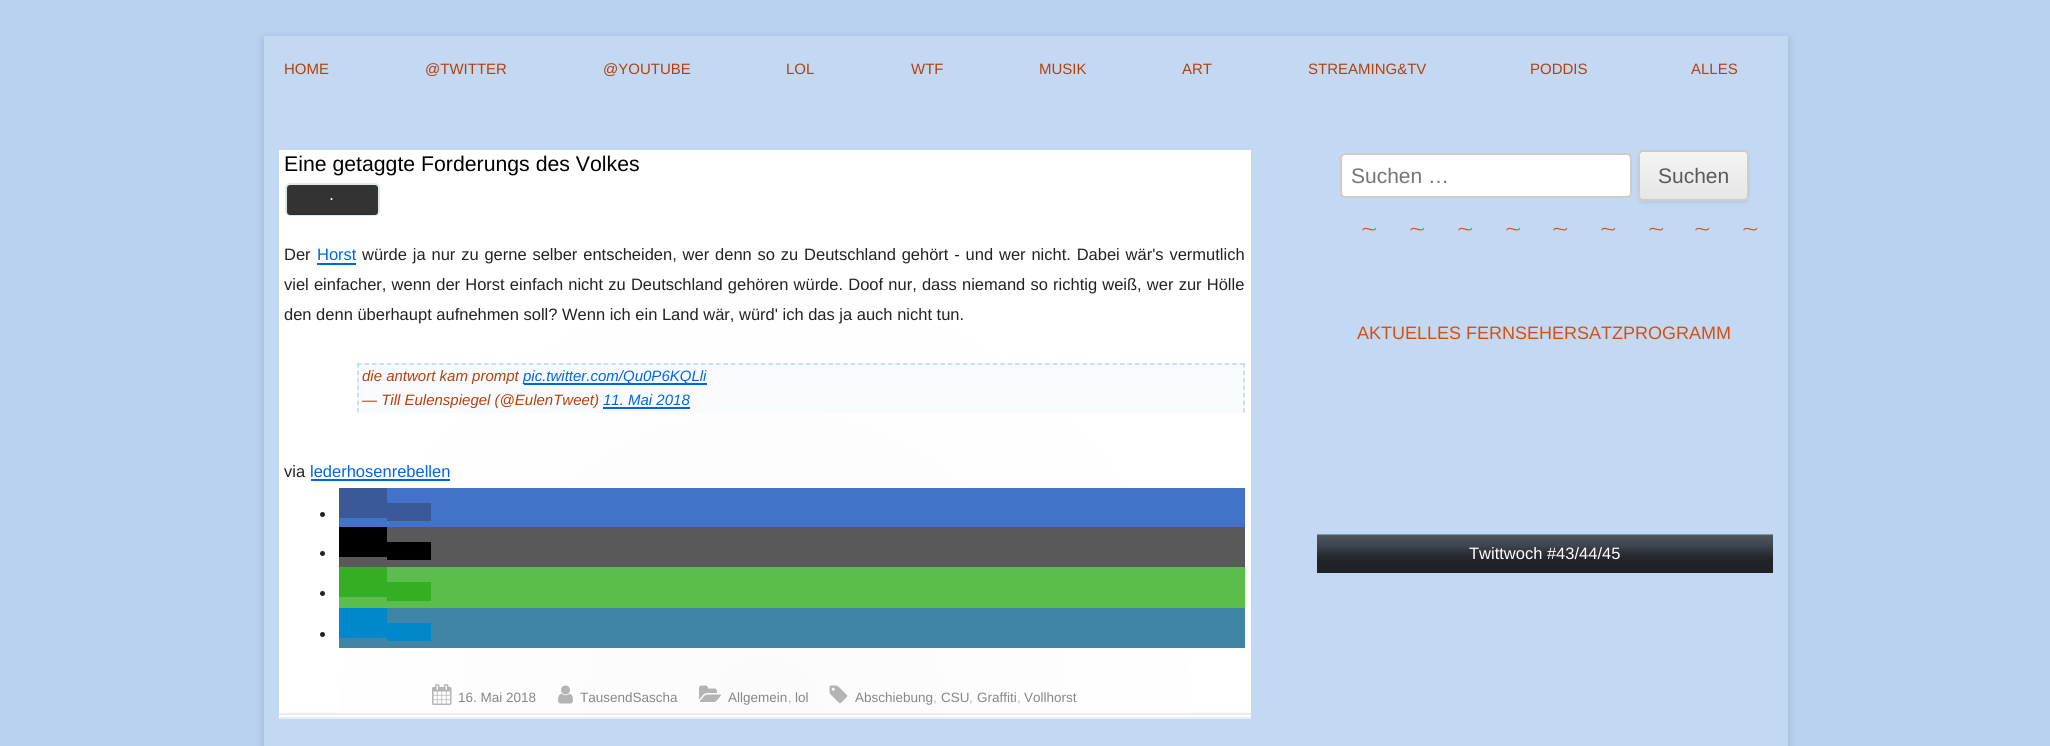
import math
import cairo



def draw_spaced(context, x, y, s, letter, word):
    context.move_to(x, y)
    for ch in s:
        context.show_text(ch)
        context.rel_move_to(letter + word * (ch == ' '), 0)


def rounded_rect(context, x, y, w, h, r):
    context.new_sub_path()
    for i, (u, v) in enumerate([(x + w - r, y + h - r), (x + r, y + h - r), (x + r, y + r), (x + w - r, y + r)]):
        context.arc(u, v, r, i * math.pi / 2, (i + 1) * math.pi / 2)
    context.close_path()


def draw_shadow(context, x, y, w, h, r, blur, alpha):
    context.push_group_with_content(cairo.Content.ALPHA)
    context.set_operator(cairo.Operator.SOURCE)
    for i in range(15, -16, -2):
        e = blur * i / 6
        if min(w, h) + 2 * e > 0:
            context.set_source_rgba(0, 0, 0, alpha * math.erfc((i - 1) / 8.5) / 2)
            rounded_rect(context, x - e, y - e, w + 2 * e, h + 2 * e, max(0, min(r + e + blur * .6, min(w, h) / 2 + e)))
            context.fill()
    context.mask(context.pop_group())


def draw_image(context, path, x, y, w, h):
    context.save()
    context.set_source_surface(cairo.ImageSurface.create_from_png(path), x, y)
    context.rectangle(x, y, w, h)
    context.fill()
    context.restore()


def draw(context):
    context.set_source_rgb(185 / 255, 210 / 255, 240 / 255)
    context.paint()
    context.set_source_rgb(100 / 255, 100 / 255, 100 / 255)
    draw_shadow(context, 264, 39, 1524, 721, 0, 4.5, 0.3)
    context.set_source_rgb(195 / 255, 216 / 255, 243 / 255)
    context.rectangle(264, 36, 1524, 710)
    context.fill()
    context.set_source_rgb(1, 1, 1)
    context.rectangle(279, 715, 972, 2)
    context.fill()
    gradient = cairo.RadialGradient(765, 713, 0, 765, 713, 486)
    gradient.add_color_stop_rgba(0, 251 / 255, 251 / 255, 251 / 255, 1)
    gradient.add_color_stop_rgba(1, 1, 1, 1, 1)
    context.set_source(gradient)
    context.rectangle(279, 150, 972, 563)
    context.fill()
    context.set_source_rgb(237 / 255, 237 / 255, 237 / 255)
    context.rectangle(279, 713, 972, 2)
    context.fill()
    context.rectangle(279, 717, 972, 2)
    context.fill()
    rounded_rect(context, 286, 184, 93, 31, 4)
    context.set_source_rgb(225 / 255, 232 / 255, 237 / 255)
    context.stroke()
    context.set_source_rgba(0, 0, 0, 0.8)
    rounded_rect(context, 287, 185, 91, 30, 3)
    context.fill()
    context.set_source_rgb(0, 102 / 255, 223 / 255)
    context.rectangle(317, 263, 39, 2)
    context.fill()
    context.set_source_rgb(247 / 255, 251 / 255, 1)
    context.rectangle(357, 363, 888, 50)
    context.fill()
    context.new_path()
    context.move_to(357, 364)
    context.line_to(1245, 364)
    context.set_source_rgb(188 / 255, 213 / 255, 241 / 255)
    context.set_line_width(1.5)
    context.set_dash([4.5, 2.98])
    context.stroke()
    context.new_path()
    context.move_to(1244, 363)
    context.line_to(1244, 412.5)
    context.set_dash([4.5, 3])
    context.stroke()
    context.new_path()
    context.move_to(358, 363)
    context.line_to(358, 412.5)
    context.stroke()
    context.set_source_rgb(0, 102 / 255, 223 / 255)
    context.rectangle(524, 383, 183, 2)
    context.fill()
    context.rectangle(603, 407, 87, 2)
    context.fill()
    context.rectangle(311, 479, 139, 2)
    context.fill()
    context.set_source_rgb(66 / 255, 115 / 255, 200 / 255)
    context.rectangle(339, 488, 906, 39)
    context.fill()
    context.set_source_rgb(34 / 255, 34 / 255, 34 / 255)
    context.arc(322.5, 514.5, 2.5, 0, 2 * math.pi)
    context.fill()
    context.set_source_rgb(59 / 255, 89 / 255, 152 / 255)
    context.rectangle(339, 488, 48, 30)
    context.fill()
    context.rectangle(387, 503, 44, 18)
    context.fill()
    context.set_source_rgb(89 / 255, 89 / 255, 89 / 255)
    context.rectangle(339, 527, 906, 40)
    context.fill()
    context.set_source_rgb(34 / 255, 34 / 255, 34 / 255)
    context.arc(322.5, 553.5, 2.5, 0, 2 * math.pi)
    context.fill()
    context.set_source_rgb(0, 0, 0)
    context.rectangle(339, 527, 48, 30)
    context.fill()
    context.rectangle(387, 542, 44, 18)
    context.fill()
    context.set_source_rgb(92 / 255, 190 / 255, 74 / 255)
    context.rectangle(339, 567, 906, 41)
    context.fill()
    context.set_source_rgb(34 / 255, 34 / 255, 34 / 255)
    context.arc(322.5, 593.5, 2.5, 0, 2 * math.pi)
    context.fill()
    context.set_source_rgb(52 / 255, 175 / 255, 35 / 255)
    context.rectangle(339, 567, 48, 30)
    context.fill()
    context.rectangle(387, 582, 39, 19)
    context.fill()
    context.rectangle(426, 582, 5, 19)
    context.fill()
    context.set_source_rgb(64 / 255, 132 / 255, 166 / 255)
    context.rectangle(339, 608, 906, 40)
    context.fill()
    context.set_source_rgb(34 / 255, 34 / 255, 34 / 255)
    context.arc(322.5, 634.5, 2.5, 0, 2 * math.pi)
    context.fill()
    context.set_source_rgb(0, 136 / 255, 204 / 255)
    context.rectangle(339, 608, 48, 30)
    context.fill()
    context.rectangle(387, 623, 44, 18)
    context.fill()
    draw_image(context, "images/1.png", 432, 684, 20, 21)
    draw_image(context, "images/2.png", 558, 685, 15, 19)
    draw_image(context, "images/3.png", 699, 685, 22, 17)
    draw_image(context, "images/4.png", 829, 685, 19, 19)
    context.set_source_rgb(1, 1, 1)
    rounded_rect(context, 1341, 154, 290, 43, 4)
    context.fill_preserve()
    context.set_source_rgb(204 / 255, 204 / 255, 204 / 255)
    context.set_line_width(2)
    context.set_dash([])
    context.stroke()
    context.set_source_rgb(64 / 255, 64 / 255, 64 / 255)
    draw_shadow(context, 1638, 152, 111, 51, 5, 1.5, 0.1)
    context.save()
    rounded_rect(context, 1638, 150, 111, 51, 5)
    context.clip()
    gradient = cairo.LinearGradient(1694, 152, 1694, 200)
    gradient.add_color_stop_rgba(0, 244 / 255, 244 / 255, 244 / 255, 1)
    gradient.add_color_stop_rgba(1, 230 / 255, 230 / 255, 230 / 255, 1)
    context.set_source(gradient)
    context.rectangle(1638, 152, 111, 48)
    context.fill()
    context.restore()
    rounded_rect(context, 1639, 151, 109, 49, 4)
    context.set_source_rgb(204 / 255, 204 / 255, 204 / 255)
    context.stroke()
    gradient = cairo.LinearGradient(1545, 534, 1545, 573)
    gradient.add_color_stop_rgba(0, 158 / 255, 175 / 255, 197 / 255, 1)
    gradient.add_color_stop_rgba(0.04, 76 / 255, 84 / 255, 95 / 255, 1)
    gradient.add_color_stop_rgba(0.32, 60 / 255, 67 / 255, 75 / 255, 1)
    gradient.add_color_stop_rgba(0.48, 45 / 255, 50 / 255, 56 / 255, 1)
    gradient.add_color_stop_rgba(0.59, 37 / 255, 41 / 255, 46 / 255, 1)
    gradient.add_color_stop_rgba(0.72, 31 / 255, 35 / 255, 39 / 255, 1)
    gradient.add_color_stop_rgba(0.96, 31 / 255, 35 / 255, 39 / 255, 1)
    context.set_source(gradient)
    context.rectangle(1317, 534, 456, 39)
    context.fill()
    context.select_font_face("Liberation Sans")
    context.set_font_size(15)
    context.set_source_rgb(179 / 255, 65 / 255, 9 / 255)
    context.move_to(284, 74)
    context.show_text("HOME")
    context.move_to(425, 74)
    context.show_text("@TWITTER")
    context.move_to(603, 74)
    context.show_text("@YOUTUBE")
    context.move_to(786, 74)
    context.show_text("LOL")
    context.move_to(911, 74)
    context.show_text("WTF")
    context.move_to(1039, 74)
    context.show_text("MUSIK")
    context.move_to(1182, 74)
    context.show_text("ART")
    context.move_to(1308, 74)
    context.show_text("STREAMING&TV")
    context.move_to(1530, 74)
    context.show_text("PODDIS")
    context.move_to(1691, 74)
    context.show_text("ALLES")
    context.set_font_size(21.25)
    context.set_source_rgb(0, 0, 0)
    context.move_to(284, 171)
    context.show_text("Eine getaggte Forderungs des Volkes")
    context.set_font_size(18)
    context.set_source_rgb(1, 1, 1)
    context.move_to(329, 200)
    context.show_text(".")
    context.set_font_size(16.5)
    context.set_source_rgb(34 / 255, 34 / 255, 34 / 255)
    context.move_to(284, 260)
    context.show_text("Der")
    context.set_source_rgb(0, 102 / 255, 223 / 255)
    context.move_to(317, 260)
    context.show_text("Horst")
    context.set_source_rgb(34 / 255, 34 / 255, 34 / 255)
    draw_spaced(context, 362, 260, "würde ja nur zu gerne selber entscheiden, wer denn so zu Deutschland gehört - und wer nicht. Dabei wär's vermutlich", 0, 1.25)
    draw_spaced(context, 284, 290, "viel einfacher, wenn der Horst einfach nicht zu Deutschland gehören würde. Doof nur, dass niemand so richtig weiß, wer zur Hölle", 0, 0.6)
    context.move_to(284, 320)
    context.show_text("den denn überhaupt aufnehmen soll? Wenn ich ein Land wär, würd' ich das ja auch nicht tun.")
    context.select_font_face("Liberation Sans", cairo.FontSlant.ITALIC)
    context.set_font_size(15)
    context.set_source_rgb(179 / 255, 65 / 255, 9 / 255)
    context.move_to(362, 381)
    context.show_text("die antwort kam prompt")
    context.set_source_rgb(0, 102 / 255, 223 / 255)
    context.move_to(523, 381)
    context.show_text("pic.twitter.com/Qu0P6KQLli")
    context.set_source_rgb(179 / 255, 65 / 255, 9 / 255)
    context.move_to(362, 405)
    context.show_text("— Till Eulenspiegel (@EulenTweet)")
    context.set_source_rgb(0, 102 / 255, 223 / 255)
    context.move_to(603, 405)
    context.show_text("11. Mai 2018")
    context.select_font_face("Liberation Sans")
    context.set_font_size(16.5)
    context.set_source_rgb(34 / 255, 34 / 255, 34 / 255)
    context.move_to(284, 477)
    context.show_text("via")
    context.set_source_rgb(0, 102 / 255, 223 / 255)
    context.move_to(310, 477)
    context.show_text("lederhosenrebellen")
    context.set_font_size(13.5)
    context.set_source_rgb(135 / 255, 135 / 255, 135 / 255)
    context.move_to(458, 702)
    context.show_text("16. Mai 2018")
    context.move_to(580, 702)
    context.show_text("TausendSascha")
    context.move_to(728, 702)
    context.show_text("Allgemein")
    context.set_source_rgb(180 / 255, 180 / 255, 180 / 255)
    context.move_to(788, 702)
    context.show_text(",")
    context.set_source_rgb(135 / 255, 135 / 255, 135 / 255)
    context.move_to(795, 702)
    context.show_text("lol")
    context.move_to(855, 702)
    context.show_text("Abschiebung")
    context.set_source_rgb(180 / 255, 180 / 255, 180 / 255)
    context.move_to(933, 702)
    context.show_text(",")
    context.set_source_rgb(135 / 255, 135 / 255, 135 / 255)
    context.move_to(941, 702)
    context.show_text("CSU")
    context.set_source_rgb(180 / 255, 180 / 255, 180 / 255)
    context.move_to(969, 702)
    context.show_text(",")
    context.set_source_rgb(135 / 255, 135 / 255, 135 / 255)
    context.move_to(977, 702)
    context.show_text("Graffiti")
    context.set_source_rgb(180 / 255, 180 / 255, 180 / 255)
    context.move_to(1017, 702)
    context.show_text(",")
    context.set_source_rgb(135 / 255, 135 / 255, 135 / 255)
    context.move_to(1024, 702)
    context.show_text("Vollhorst")
    context.set_font_size(21)
    context.set_source_rgb(117 / 255, 117 / 255, 117 / 255)
    context.move_to(1351, 183)
    context.show_text("Suchen …")
    context.set_source_rgb(90 / 255, 90 / 255, 90 / 255)
    context.move_to(1658, 183)
    context.show_text("Suchen")
    context.select_font_face("Noto Sans")
    context.set_font_size(16.5)
    context.set_source_rgb(214 / 255, 80 / 255, 13 / 255)
    context.move_to(1361, 234)
    context.show_text("⁓")
    context.move_to(1409, 234)
    context.show_text("⁓")
    context.move_to(1457, 234)
    context.show_text("⁓")
    context.move_to(1505, 234)
    context.show_text("⁓")
    context.move_to(1552, 234)
    context.show_text("⁓")
    context.move_to(1600, 234)
    context.show_text("⁓")
    context.move_to(1648, 234)
    context.show_text("⁓")
    context.move_to(1694, 234)
    context.show_text("⁓")
    context.move_to(1742, 234)
    context.show_text("⁓")
    context.select_font_face("Liberation Sans")
    context.set_font_size(18)
    context.move_to(1357, 339)
    context.show_text("AKTUELLES FERNSEHERSATZPROGRAMM")
    context.set_font_size(16.5)
    context.set_source_rgb(1, 1, 1)
    context.move_to(1469, 559)
    context.show_text("Twittwoch #43/44/45")


surface = cairo.ImageSurface(cairo.Format.RGB24, 2050, 746)
context = cairo.Context(surface)
options = cairo.FontOptions()
options.set_hint_metrics(cairo.HintMetrics.OFF)
options.set_hint_style(cairo.HintStyle.NONE)
context.set_font_options(options)
context.set_miter_limit(4)
draw(context)
surface.write_to_png("out.png")
